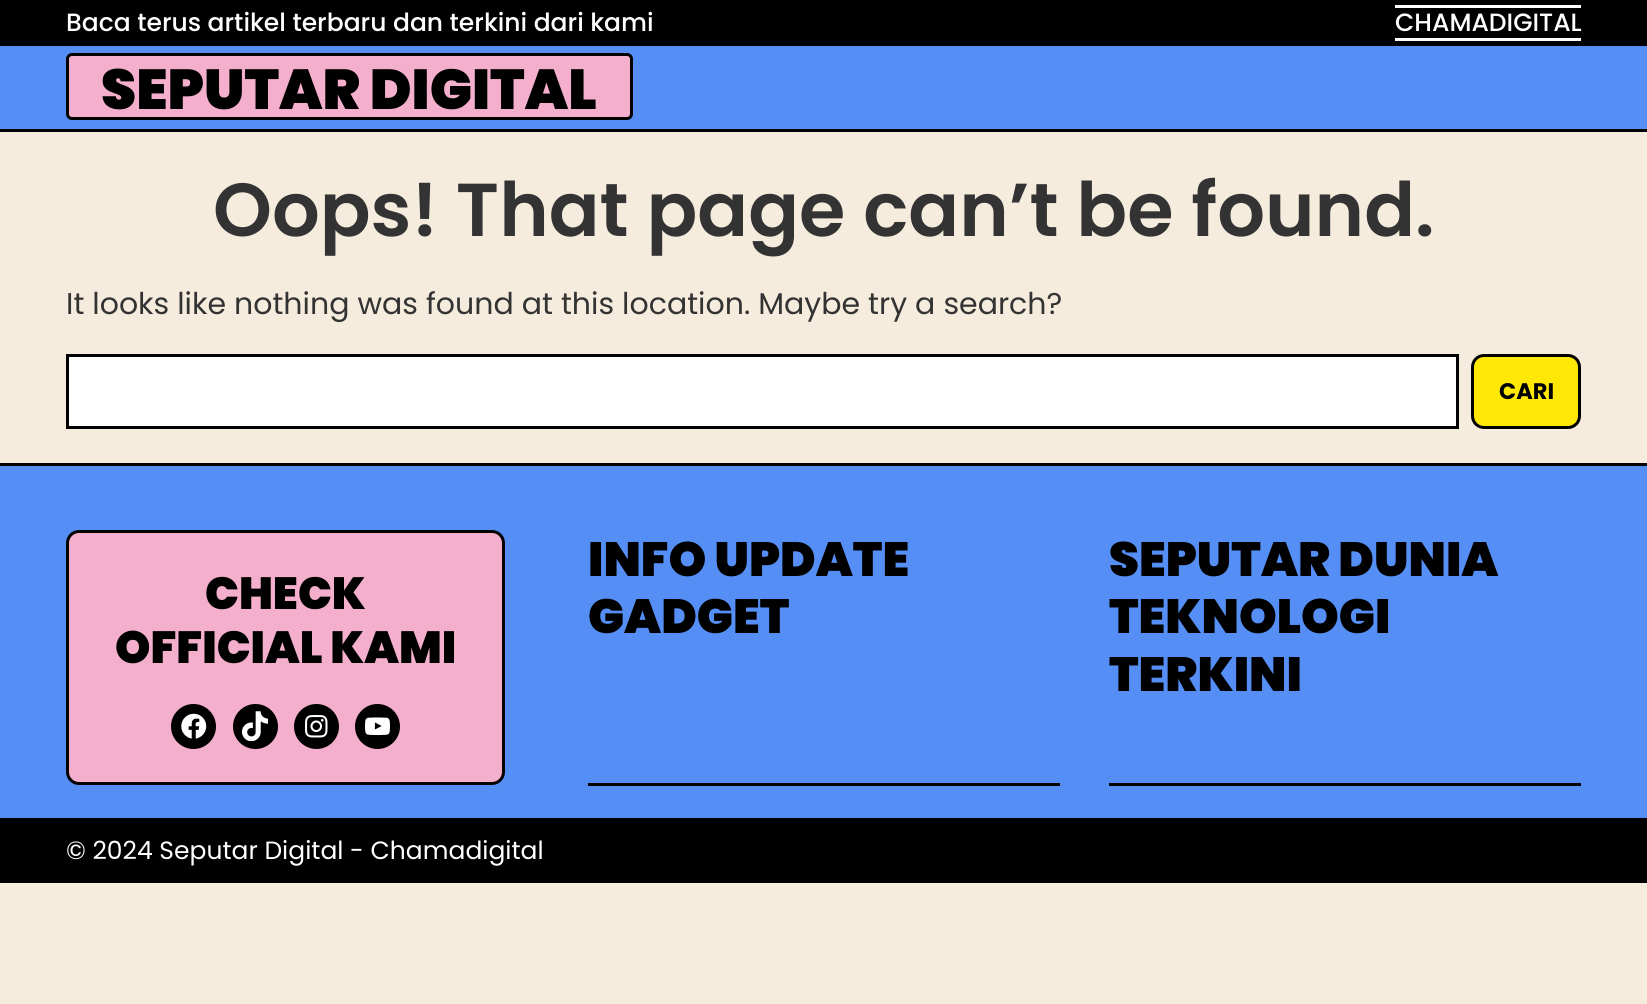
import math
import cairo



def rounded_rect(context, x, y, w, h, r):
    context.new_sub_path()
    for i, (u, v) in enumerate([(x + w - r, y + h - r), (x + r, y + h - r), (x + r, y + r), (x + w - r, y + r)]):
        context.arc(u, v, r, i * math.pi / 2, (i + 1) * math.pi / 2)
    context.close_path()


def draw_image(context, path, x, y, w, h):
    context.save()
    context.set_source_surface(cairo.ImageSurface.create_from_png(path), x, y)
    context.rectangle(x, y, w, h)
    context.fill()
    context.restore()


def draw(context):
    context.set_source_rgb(245 / 255, 236 / 255, 221 / 255)
    context.paint()
    context.set_source_rgb(0, 0, 0)
    context.rectangle(0, 0, 1647, 46)
    context.fill()
    context.set_source_rgb(1, 1, 1)
    context.rectangle(1395, 5, 186, 3)
    context.fill()
    context.rectangle(1395, 38, 186, 3)
    context.fill()
    context.set_source_rgb(85 / 255, 143 / 255, 245 / 255)
    context.rectangle(0, 46, 1647, 83)
    context.fill()
    context.set_source_rgb(0, 0, 0)
    context.rectangle(0, 129, 1647, 3)
    context.fill()
    context.set_source_rgb(244 / 255, 175 / 255, 204 / 255)
    rounded_rect(context, 67.5, 54.5, 564, 64, 4.5)
    context.fill_preserve()
    context.set_source_rgb(0, 0, 0)
    context.set_line_width(3)
    context.stroke()
    context.set_source_rgb(1, 1, 1)
    context.rectangle(67.5, 355.5, 1390, 72)
    context.fill_preserve()
    context.set_source_rgb(0, 0, 0)
    context.stroke()
    context.set_source_rgb(1, 232 / 255, 5 / 255)
    rounded_rect(context, 1472.5, 355.5, 107, 72, 11.5)
    context.fill_preserve()
    context.set_source_rgb(0, 0, 0)
    context.stroke()
    context.set_source_rgb(85 / 255, 143 / 255, 245 / 255)
    context.rectangle(0, 466, 1647, 352)
    context.fill()
    context.set_source_rgb(0, 0, 0)
    context.rectangle(0, 463, 1647, 3)
    context.fill()
    context.set_source_rgb(244 / 255, 175 / 255, 204 / 255)
    rounded_rect(context, 67.5, 531.5, 436, 252, 11.5)
    context.fill_preserve()
    context.set_source_rgb(0, 0, 0)
    context.stroke()
    context.arc(193.5, 726.5, 22.5, 0, 2 * math.pi)
    context.fill()
    draw_image(context, "images/1.png", 181, 713, 26, 26)
    context.arc(255.5, 726.5, 22.5, 0, 2 * math.pi)
    context.fill()
    draw_image(context, "images/2.png", 242, 711, 27, 30)
    context.arc(316.5, 726.5, 22.5, 0, 2 * math.pi)
    context.fill()
    draw_image(context, "images/3.png", 305, 715, 23, 23)
    context.arc(377.5, 726.5, 22.5, 0, 2 * math.pi)
    context.fill()
    draw_image(context, "images/4.png", 365, 717, 25, 19)
    context.rectangle(588, 783, 472, 3)
    context.fill()
    context.rectangle(1109, 783, 472, 3)
    context.fill()
    context.rectangle(0, 818, 1647, 65)
    context.fill()
    context.select_font_face("Poppins Medium")
    context.set_font_size(25)
    context.set_source_rgb(1, 1, 1)
    context.move_to(66, 31)
    context.show_text("Baca terus artikel terbaru dan terkini dari kami")
    context.move_to(1395, 31)
    context.show_text("CHAMADIGITAL")
    context.select_font_face("Poppins Black")
    context.set_font_size(56.25)
    context.set_source_rgb(0, 0, 0)
    context.move_to(101, 109)
    context.show_text("SEPUTAR DIGITAL")
    context.select_font_face("Poppins SemiBold")
    context.set_font_size(75)
    context.set_source_rgb(51 / 255, 51 / 255, 51 / 255)
    context.move_to(213, 236)
    context.show_text("Oops! That page can’t be found.")
    context.select_font_face("Poppins")
    context.set_font_size(30)
    context.move_to(66, 314)
    context.show_text("It looks like nothing was found at this location. Maybe try a search?")
    context.select_font_face("Poppins", cairo.FontSlant.NORMAL, cairo.FontWeight.BOLD)
    context.set_font_size(22.5)
    context.set_source_rgb(0, 0, 0)
    context.move_to(1499, 399)
    context.show_text("CARI")
    context.select_font_face("Poppins Black")
    context.set_font_size(45)
    context.move_to(205, 609)
    context.show_text("CHECK")
    context.move_to(115, 663)
    context.show_text("OFFICIAL KAMI")
    context.set_font_size(48)
    context.move_to(588, 576)
    context.show_text("INFO UPDATE")
    context.move_to(588, 633)
    context.show_text("GADGET")
    context.move_to(1109, 576)
    context.show_text("SEPUTAR DUNIA")
    context.move_to(1109, 633)
    context.show_text("TEKNOLOGI")
    context.move_to(1109, 691)
    context.show_text("TERKINI")
    context.select_font_face("Poppins")
    context.set_font_size(25)
    context.set_source_rgb(1, 1, 1)
    context.move_to(66, 859)
    context.show_text("© 2024 Seputar Digital - Chamadigital")


surface = cairo.ImageSurface(cairo.Format.RGB24, 1647, 1004)
context = cairo.Context(surface)
options = cairo.FontOptions()
options.set_hint_metrics(cairo.HintMetrics.OFF)
options.set_hint_style(cairo.HintStyle.NONE)
context.set_font_options(options)
context.set_miter_limit(4)
draw(context)
surface.write_to_png("out.png")
